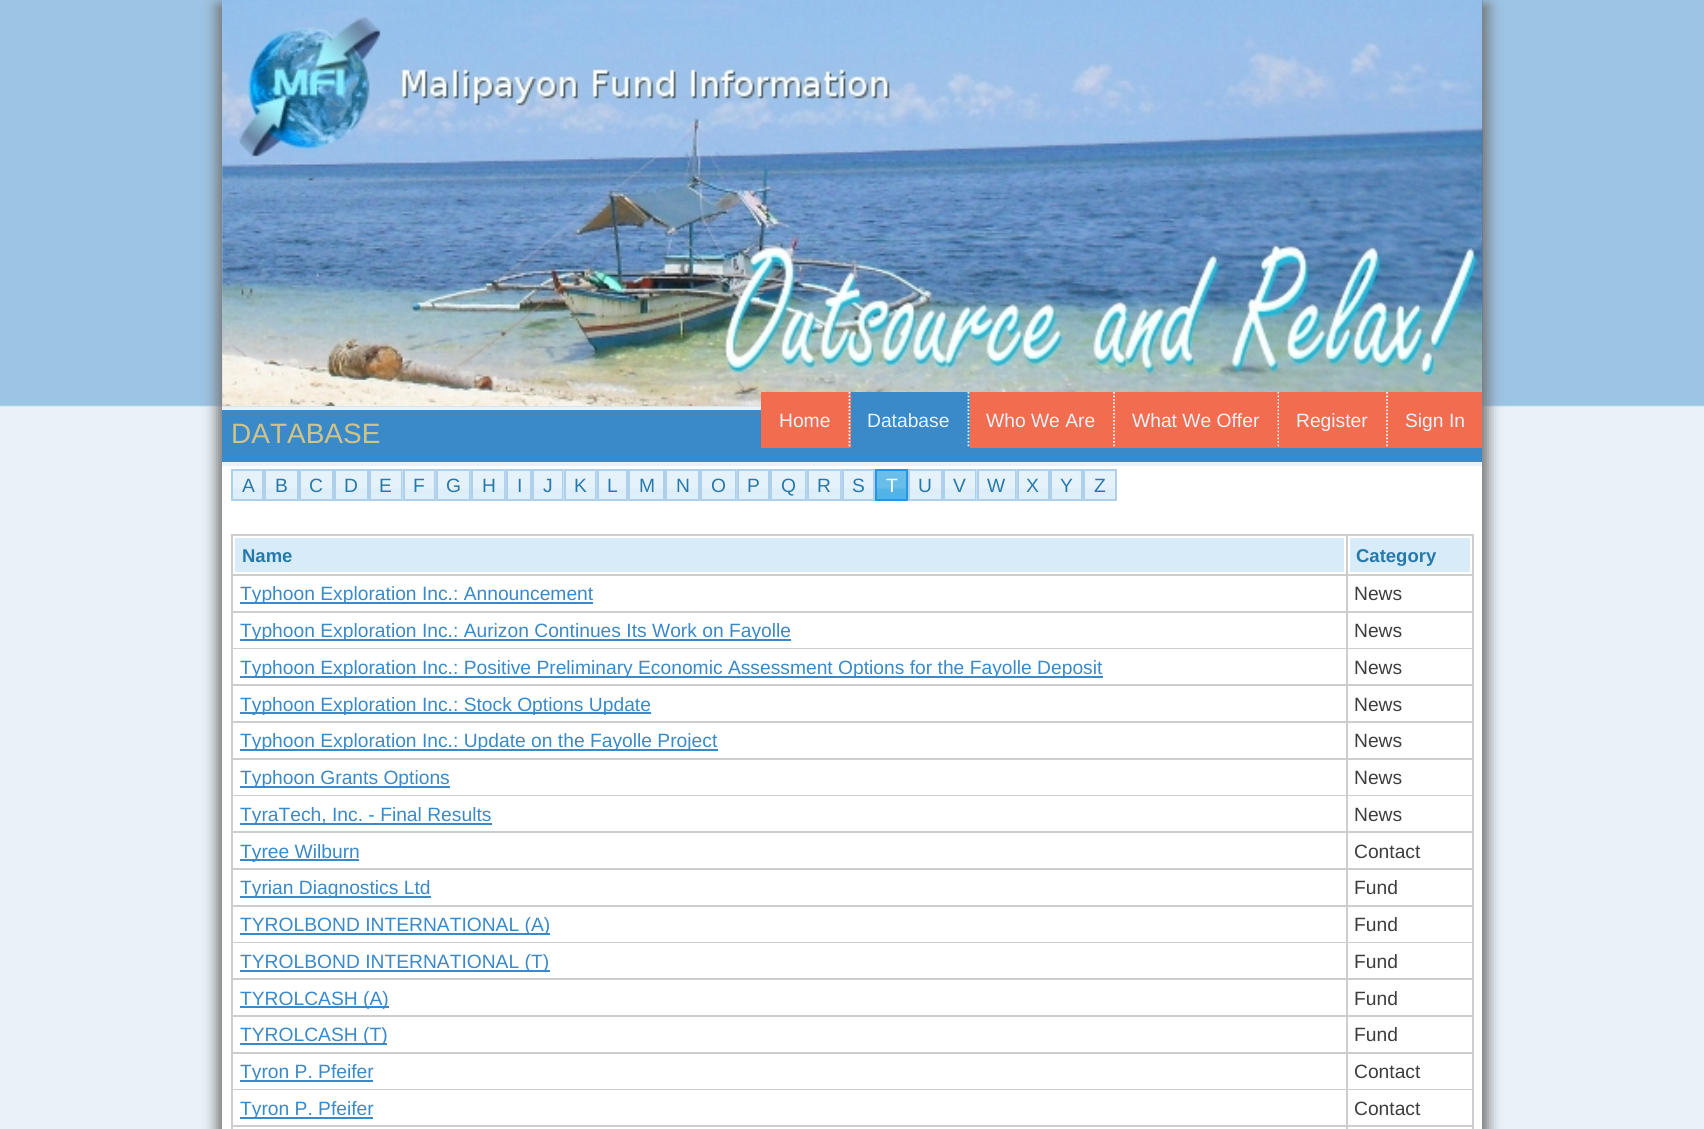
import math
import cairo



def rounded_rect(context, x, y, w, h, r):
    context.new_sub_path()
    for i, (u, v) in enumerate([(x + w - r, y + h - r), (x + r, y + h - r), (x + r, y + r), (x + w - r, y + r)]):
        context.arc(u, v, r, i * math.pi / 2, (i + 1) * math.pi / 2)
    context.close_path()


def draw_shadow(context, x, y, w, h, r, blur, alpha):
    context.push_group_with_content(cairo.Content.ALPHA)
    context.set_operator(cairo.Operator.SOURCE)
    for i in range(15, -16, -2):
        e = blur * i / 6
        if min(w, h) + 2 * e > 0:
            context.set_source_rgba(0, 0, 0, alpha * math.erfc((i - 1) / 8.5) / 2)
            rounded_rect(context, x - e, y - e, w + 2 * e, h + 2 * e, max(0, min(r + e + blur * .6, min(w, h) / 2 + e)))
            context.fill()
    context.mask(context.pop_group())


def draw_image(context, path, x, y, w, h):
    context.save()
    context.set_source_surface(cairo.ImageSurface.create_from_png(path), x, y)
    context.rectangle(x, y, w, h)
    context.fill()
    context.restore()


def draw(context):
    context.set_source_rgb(233 / 255, 242 / 255, 249 / 255)
    context.paint()
    draw_image(context, "images/1.png", 0, 0, 1704, 407)
    context.save()
    context.set_fill_rule(cairo.FillRule.EVEN_ODD)
    context.new_path()
    context.move_to(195, 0)
    context.line_to(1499, 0)
    context.line_to(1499, 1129)
    context.line_to(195, 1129)
    context.close_path()
    context.move_to(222, 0)
    context.line_to(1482, 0)
    context.line_to(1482, 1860)
    context.line_to(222, 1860)
    context.close_path()
    context.clip()
    context.set_source_rgb(119 / 255, 119 / 255, 119 / 255)
    draw_shadow(context, 217, 5, 1260, 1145, 0, 7, 1)
    context.restore()
    context.save()
    context.set_fill_rule(cairo.FillRule.EVEN_ODD)
    context.new_path()
    context.move_to(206, 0)
    context.line_to(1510, 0)
    context.line_to(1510, 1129)
    context.line_to(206, 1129)
    context.close_path()
    context.move_to(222, 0)
    context.line_to(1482, 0)
    context.line_to(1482, 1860)
    context.line_to(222, 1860)
    context.close_path()
    context.clip()
    context.set_source_rgb(119 / 255, 119 / 255, 119 / 255)
    draw_shadow(context, 228, 5, 1260, 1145, 0, 7, 1)
    context.restore()
    context.set_source_rgba(48 / 255, 68 / 255, 108 / 255, 0.25)
    context.rectangle(1482, 0, 1, 406)
    context.fill()
    draw_image(context, "images/2.png", 222, 0, 1261, 406)
    context.set_source_rgb(58 / 255, 137 / 255, 201 / 255)
    context.rectangle(222, 410, 1260, 52)
    context.fill()
    context.set_source_rgb(242 / 255, 108 / 255, 79 / 255)
    context.rectangle(761, 392, 90, 56)
    context.fill()
    context.new_path()
    context.move_to(849.5, 392)
    context.line_to(849.5, 448)
    context.set_source_rgb(233 / 255, 242 / 255, 249 / 255)
    context.set_line_width(1.8)
    context.set_dash([1.75, 1.75])
    context.stroke()
    context.set_source_rgb(58 / 255, 137 / 255, 201 / 255)
    context.rectangle(851, 392, 119, 18)
    context.fill()
    context.new_path()
    context.move_to(968.5, 392)
    context.line_to(968.5, 448)
    context.set_source_rgb(233 / 255, 242 / 255, 249 / 255)
    context.stroke()
    context.set_source_rgb(242 / 255, 108 / 255, 79 / 255)
    context.rectangle(970, 392, 309, 56)
    context.fill()
    context.new_path()
    context.move_to(1114, 392)
    context.line_to(1114, 448)
    context.set_source_rgb(233 / 255, 242 / 255, 249 / 255)
    context.stroke()
    context.new_path()
    context.move_to(1278.5, 392)
    context.line_to(1278.5, 448)
    context.stroke()
    context.set_source_rgb(242 / 255, 108 / 255, 79 / 255)
    context.rectangle(1279, 392, 203, 56)
    context.fill()
    context.new_path()
    context.move_to(1387, 392)
    context.line_to(1387, 448)
    context.set_source_rgb(233 / 255, 242 / 255, 249 / 255)
    context.stroke()
    context.set_source_rgb(1, 1, 1)
    context.rectangle(222, 466, 1260, 663)
    context.fill()
    draw_image(context, "images/3.png", 233, 471, 29, 28)
    draw_image(context, "images/4.png", 266, 471, 31, 28)
    draw_image(context, "images/4.png", 301, 471, 31, 28)
    draw_image(context, "images/4.png", 336, 471, 31, 28)
    draw_image(context, "images/5.png", 371, 471, 30, 28)
    context.rectangle(370, 470, 32, 30)
    context.set_source_rgb(174 / 255, 208 / 255, 234 / 255)
    context.set_line_width(2)
    context.set_dash([])
    context.stroke()
    draw_image(context, "images/6.png", 402, 469, 32, 32)
    context.rectangle(404, 470, 31, 30)
    context.stroke()
    draw_image(context, "images/7.png", 435, 469, 34, 32)
    context.rectangle(437, 470, 33, 30)
    context.stroke()
    draw_image(context, "images/7.png", 470, 469, 34, 32)
    context.rectangle(472, 470, 33, 30)
    context.stroke()
    draw_image(context, "images/8.png", 505, 469, 25, 32)
    draw_image(context, "images/9.png", 534, 471, 28, 28)
    context.rectangle(533, 470, 30, 30)
    context.stroke()
    draw_image(context, "images/6.png", 563, 469, 32, 32)
    context.rectangle(565, 470, 31, 30)
    context.stroke()
    draw_image(context, "images/10.png", 596, 469, 30, 32)
    draw_image(context, "images/11.png", 630, 471, 33, 28)
    draw_image(context, "images/4.png", 667, 471, 31, 28)
    draw_image(context, "images/11.png", 702, 471, 33, 28)
    context.rectangle(701, 470, 35, 30)
    context.stroke()
    draw_image(context, "images/12.png", 736, 469, 32, 32)
    draw_image(context, "images/11.png", 772, 471, 33, 28)
    context.rectangle(771, 470, 35, 30)
    context.stroke()
    draw_image(context, "images/7.png", 806, 469, 34, 32)
    context.rectangle(808, 470, 33, 30)
    context.stroke()
    draw_image(context, "images/12.png", 841, 469, 32, 32)
    draw_image(context, "images/13.png", 877, 471, 29, 28)
    draw_image(context, "images/4.png", 910, 471, 31, 28)
    draw_image(context, "images/5.png", 945, 471, 30, 28)
    context.rectangle(944, 470, 32, 30)
    context.stroke()
    draw_image(context, "images/14.png", 976, 469, 39, 32)
    context.rectangle(978, 470, 38, 30)
    context.stroke()
    draw_image(context, "images/12.png", 1016, 469, 32, 32)
    draw_image(context, "images/3.png", 1052, 471, 29, 28)
    draw_image(context, "images/5.png", 1085, 471, 30, 28)
    context.rectangle(232, 470, 31, 30)
    context.stroke()
    context.rectangle(265, 470, 33, 30)
    context.stroke()
    context.rectangle(300, 470, 33, 30)
    context.stroke()
    context.rectangle(335, 470, 33, 30)
    context.stroke()
    context.rectangle(507, 470, 24, 30)
    context.stroke()
    context.rectangle(598, 470, 29, 30)
    context.stroke()
    context.rectangle(629, 470, 35, 30)
    context.stroke()
    context.rectangle(666, 470, 33, 30)
    context.stroke()
    context.rectangle(738, 470, 31, 30)
    context.stroke()
    context.rectangle(843, 470, 31, 30)
    context.stroke()
    context.rectangle(876, 470, 31, 30)
    context.set_source_rgb(38 / 255, 148 / 255, 232 / 255)
    context.stroke()
    context.rectangle(909, 470, 33, 30)
    context.set_source_rgb(174 / 255, 208 / 255, 234 / 255)
    context.stroke()
    context.rectangle(1018, 470, 31, 30)
    context.stroke()
    context.rectangle(1051, 470, 31, 30)
    context.stroke()
    context.rectangle(1084, 470, 32, 30)
    context.stroke()
    context.set_source_rgb(205 / 255, 205 / 255, 205 / 255)
    context.rectangle(231, 534, 1243, 595)
    context.fill()
    context.set_source_rgb(215 / 255, 235 / 255, 249 / 255)
    context.rectangle(234, 537, 1111, 36)
    context.fill_preserve()
    context.set_source_rgb(1, 1, 1)
    context.stroke()
    context.set_source_rgb(215 / 255, 235 / 255, 249 / 255)
    context.rectangle(1349, 537, 122, 36)
    context.fill_preserve()
    context.set_source_rgb(1, 1, 1)
    context.stroke()
    context.rectangle(233, 576, 1113, 35)
    context.fill()
    context.set_source_rgb(58 / 255, 137 / 255, 201 / 255)
    context.rectangle(240, 602, 353, 2)
    context.fill()
    context.set_source_rgb(1, 1, 1)
    context.rectangle(1348, 576, 124, 35)
    context.fill()
    context.rectangle(233, 613, 1113, 35)
    context.fill()
    context.set_source_rgb(58 / 255, 137 / 255, 201 / 255)
    context.rectangle(240, 639, 551, 2)
    context.fill()
    context.set_source_rgb(1, 1, 1)
    context.rectangle(1348, 613, 124, 35)
    context.fill()
    context.rectangle(233, 649, 1113, 35)
    context.fill()
    context.set_source_rgb(58 / 255, 137 / 255, 201 / 255)
    context.rectangle(240, 676, 863, 2)
    context.fill()
    context.set_source_rgb(1, 1, 1)
    context.rectangle(1348, 649, 124, 35)
    context.fill()
    context.rectangle(233, 686, 1113, 35)
    context.fill()
    context.set_source_rgb(58 / 255, 137 / 255, 201 / 255)
    context.rectangle(240, 712, 411, 2)
    context.fill()
    context.set_source_rgb(1, 1, 1)
    context.rectangle(1348, 686, 124, 35)
    context.fill()
    context.rectangle(233, 723, 1113, 35)
    context.fill()
    context.set_source_rgb(58 / 255, 137 / 255, 201 / 255)
    context.rectangle(240, 749, 478, 2)
    context.fill()
    context.set_source_rgb(1, 1, 1)
    context.rectangle(1348, 723, 124, 35)
    context.fill()
    context.rectangle(233, 760, 1113, 35)
    context.fill()
    context.set_source_rgb(58 / 255, 137 / 255, 201 / 255)
    context.rectangle(240, 786, 210, 2)
    context.fill()
    context.set_source_rgb(1, 1, 1)
    context.rectangle(1348, 760, 124, 35)
    context.fill()
    context.rectangle(233, 796, 1113, 35)
    context.fill()
    context.set_source_rgb(58 / 255, 137 / 255, 201 / 255)
    context.rectangle(240, 823, 252, 2)
    context.fill()
    context.set_source_rgb(1, 1, 1)
    context.rectangle(1348, 796, 124, 35)
    context.fill()
    context.rectangle(233, 833, 1113, 35)
    context.fill()
    context.set_source_rgb(58 / 255, 137 / 255, 201 / 255)
    context.rectangle(240, 859, 119, 2)
    context.fill()
    context.set_source_rgb(1, 1, 1)
    context.rectangle(1348, 833, 124, 35)
    context.fill()
    context.rectangle(233, 870, 1113, 35)
    context.fill()
    context.set_source_rgb(58 / 255, 137 / 255, 201 / 255)
    context.rectangle(240, 896, 191, 2)
    context.fill()
    context.set_source_rgb(1, 1, 1)
    context.rectangle(1348, 870, 124, 35)
    context.fill()
    context.rectangle(233, 907, 1113, 35)
    context.fill()
    context.set_source_rgb(58 / 255, 137 / 255, 201 / 255)
    context.rectangle(240, 933, 310, 2)
    context.fill()
    context.set_source_rgb(1, 1, 1)
    context.rectangle(1348, 907, 124, 35)
    context.fill()
    context.rectangle(233, 943, 1113, 35)
    context.fill()
    context.set_source_rgb(58 / 255, 137 / 255, 201 / 255)
    context.rectangle(240, 970, 310, 2)
    context.fill()
    context.set_source_rgb(1, 1, 1)
    context.rectangle(1348, 943, 124, 35)
    context.fill()
    context.rectangle(233, 980, 1113, 35)
    context.fill()
    context.set_source_rgb(58 / 255, 137 / 255, 201 / 255)
    context.rectangle(240, 1006, 149, 2)
    context.fill()
    context.set_source_rgb(1, 1, 1)
    context.rectangle(1348, 980, 124, 35)
    context.fill()
    context.rectangle(233, 1017, 1113, 35)
    context.fill()
    context.set_source_rgb(58 / 255, 137 / 255, 201 / 255)
    context.rectangle(240, 1043, 147, 2)
    context.fill()
    context.set_source_rgb(1, 1, 1)
    context.rectangle(1348, 1017, 124, 35)
    context.fill()
    context.rectangle(233, 1054, 1113, 35)
    context.fill()
    context.set_source_rgb(58 / 255, 137 / 255, 201 / 255)
    context.rectangle(240, 1080, 133, 2)
    context.fill()
    context.set_source_rgb(1, 1, 1)
    context.rectangle(1348, 1054, 124, 35)
    context.fill()
    context.rectangle(233, 1090, 1113, 35)
    context.fill()
    context.set_source_rgb(58 / 255, 137 / 255, 201 / 255)
    context.rectangle(240, 1117, 133, 2)
    context.fill()
    context.set_source_rgb(1, 1, 1)
    context.rectangle(1348, 1090, 124, 35)
    context.fill()
    context.rectangle(233, 1127, 1113, 2)
    context.fill()
    context.rectangle(1348, 1127, 124, 2)
    context.fill()
    context.select_font_face("Liberation Sans")
    context.set_font_size(28)
    context.set_source_rgb(208 / 255, 195 / 255, 137 / 255)
    context.move_to(231, 443)
    context.show_text("DATABASE")
    context.set_font_size(19.25)
    context.set_source_rgb(233 / 255, 242 / 255, 249 / 255)
    context.move_to(779, 427)
    context.show_text("Home")
    context.move_to(867, 427)
    context.show_text("Database")
    context.move_to(986, 427)
    context.show_text("Who We Are")
    context.move_to(1132, 427)
    context.show_text("What We Offer")
    context.move_to(1296, 427)
    context.show_text("Register")
    context.move_to(1405, 427)
    context.show_text("Sign In")
    context.set_source_rgb(39 / 255, 121 / 255, 170 / 255)
    context.move_to(242, 492)
    context.show_text("A")
    context.move_to(275, 492)
    context.show_text("B")
    context.move_to(309, 492)
    context.show_text("C")
    context.move_to(344, 492)
    context.show_text("D")
    context.move_to(379, 492)
    context.show_text("E")
    context.move_to(413, 492)
    context.show_text("F")
    context.move_to(446, 492)
    context.show_text("G")
    context.move_to(482, 492)
    context.show_text("H")
    context.move_to(517, 492)
    context.show_text("I")
    context.move_to(543, 492)
    context.show_text("J")
    context.move_to(574, 492)
    context.show_text("K")
    context.move_to(607, 492)
    context.show_text("L")
    context.move_to(639, 492)
    context.show_text("M")
    context.move_to(676, 492)
    context.show_text("N")
    context.move_to(711, 492)
    context.show_text("O")
    context.move_to(747, 492)
    context.show_text("P")
    context.move_to(781, 492)
    context.show_text("Q")
    context.move_to(817, 492)
    context.show_text("R")
    context.move_to(852, 492)
    context.show_text("S")
    context.set_source_rgb(1, 1, 1)
    context.move_to(886, 492)
    context.show_text("T")
    context.set_source_rgb(39 / 255, 121 / 255, 170 / 255)
    context.move_to(918, 492)
    context.show_text("U")
    context.move_to(953, 492)
    context.show_text("V")
    context.move_to(987, 492)
    context.show_text("W")
    context.move_to(1026, 492)
    context.show_text("X")
    context.move_to(1060, 492)
    context.show_text("Y")
    context.move_to(1094, 492)
    context.show_text("Z")
    context.select_font_face("Liberation Sans", cairo.FontSlant.NORMAL, cairo.FontWeight.BOLD)
    context.set_font_size(18.5)
    context.move_to(242, 562)
    context.show_text("Name")
    context.move_to(1356, 562)
    context.show_text("Category")
    context.select_font_face("Liberation Sans")
    context.set_font_size(19.25)
    context.set_source_rgb(58 / 255, 137 / 255, 201 / 255)
    context.move_to(240, 600)
    context.show_text("Typhoon Exploration Inc.: Announcement")
    context.set_source_rgb(61 / 255, 61 / 255, 61 / 255)
    context.move_to(1354, 600)
    context.show_text("News")
    context.set_source_rgb(58 / 255, 137 / 255, 201 / 255)
    context.move_to(240, 637)
    context.show_text("Typhoon Exploration Inc.: Aurizon Continues Its Work on Fayolle")
    context.set_source_rgb(61 / 255, 61 / 255, 61 / 255)
    context.move_to(1354, 637)
    context.show_text("News")
    context.set_source_rgb(58 / 255, 137 / 255, 201 / 255)
    context.move_to(240, 674)
    context.show_text("Typhoon Exploration Inc.: Positive Preliminary Economic Assessment Options for the Fayolle Deposit")
    context.set_source_rgb(61 / 255, 61 / 255, 61 / 255)
    context.move_to(1354, 674)
    context.show_text("News")
    context.set_source_rgb(58 / 255, 137 / 255, 201 / 255)
    context.move_to(240, 711)
    context.show_text("Typhoon Exploration Inc.: Stock Options Update")
    context.set_source_rgb(61 / 255, 61 / 255, 61 / 255)
    context.move_to(1354, 711)
    context.show_text("News")
    context.set_source_rgb(58 / 255, 137 / 255, 201 / 255)
    context.move_to(240, 747)
    context.show_text("Typhoon Exploration Inc.: Update on the Fayolle Project")
    context.set_source_rgb(61 / 255, 61 / 255, 61 / 255)
    context.move_to(1354, 747)
    context.show_text("News")
    context.set_source_rgb(58 / 255, 137 / 255, 201 / 255)
    context.move_to(240, 784)
    context.show_text("Typhoon Grants Options")
    context.set_source_rgb(61 / 255, 61 / 255, 61 / 255)
    context.move_to(1354, 784)
    context.show_text("News")
    context.set_source_rgb(58 / 255, 137 / 255, 201 / 255)
    context.move_to(240, 821)
    context.show_text("TyraTech, Inc. - Final Results")
    context.set_source_rgb(61 / 255, 61 / 255, 61 / 255)
    context.move_to(1354, 821)
    context.show_text("News")
    context.set_source_rgb(58 / 255, 137 / 255, 201 / 255)
    context.move_to(240, 858)
    context.show_text("Tyree Wilburn")
    context.set_source_rgb(61 / 255, 61 / 255, 61 / 255)
    context.move_to(1354, 858)
    context.show_text("Contact")
    context.set_source_rgb(58 / 255, 137 / 255, 201 / 255)
    context.move_to(240, 894)
    context.show_text("Tyrian Diagnostics Ltd")
    context.set_source_rgb(61 / 255, 61 / 255, 61 / 255)
    context.move_to(1354, 894)
    context.show_text("Fund")
    context.set_source_rgb(58 / 255, 137 / 255, 201 / 255)
    context.move_to(240, 931)
    context.show_text("TYROLBOND INTERNATIONAL (A)")
    context.set_source_rgb(61 / 255, 61 / 255, 61 / 255)
    context.move_to(1354, 931)
    context.show_text("Fund")
    context.set_source_rgb(58 / 255, 137 / 255, 201 / 255)
    context.move_to(240, 968)
    context.show_text("TYROLBOND INTERNATIONAL (T)")
    context.set_source_rgb(61 / 255, 61 / 255, 61 / 255)
    context.move_to(1354, 968)
    context.show_text("Fund")
    context.set_source_rgb(58 / 255, 137 / 255, 201 / 255)
    context.move_to(240, 1005)
    context.show_text("TYROLCASH (A)")
    context.set_source_rgb(61 / 255, 61 / 255, 61 / 255)
    context.move_to(1354, 1005)
    context.show_text("Fund")
    context.set_source_rgb(58 / 255, 137 / 255, 201 / 255)
    context.move_to(240, 1041)
    context.show_text("TYROLCASH (T)")
    context.set_source_rgb(61 / 255, 61 / 255, 61 / 255)
    context.move_to(1354, 1041)
    context.show_text("Fund")
    context.set_source_rgb(58 / 255, 137 / 255, 201 / 255)
    context.move_to(240, 1078)
    context.show_text("Tyron P. Pfeifer")
    context.set_source_rgb(61 / 255, 61 / 255, 61 / 255)
    context.move_to(1354, 1078)
    context.show_text("Contact")
    context.set_source_rgb(58 / 255, 137 / 255, 201 / 255)
    context.move_to(240, 1115)
    context.show_text("Tyron P. Pfeifer")
    context.set_source_rgb(61 / 255, 61 / 255, 61 / 255)
    context.move_to(1354, 1115)
    context.show_text("Contact")


surface = cairo.ImageSurface(cairo.Format.RGB24, 1704, 1129)
context = cairo.Context(surface)
options = cairo.FontOptions()
options.set_hint_metrics(cairo.HintMetrics.OFF)
options.set_hint_style(cairo.HintStyle.NONE)
context.set_font_options(options)
context.set_miter_limit(4)
draw(context)
surface.write_to_png("out.png")
